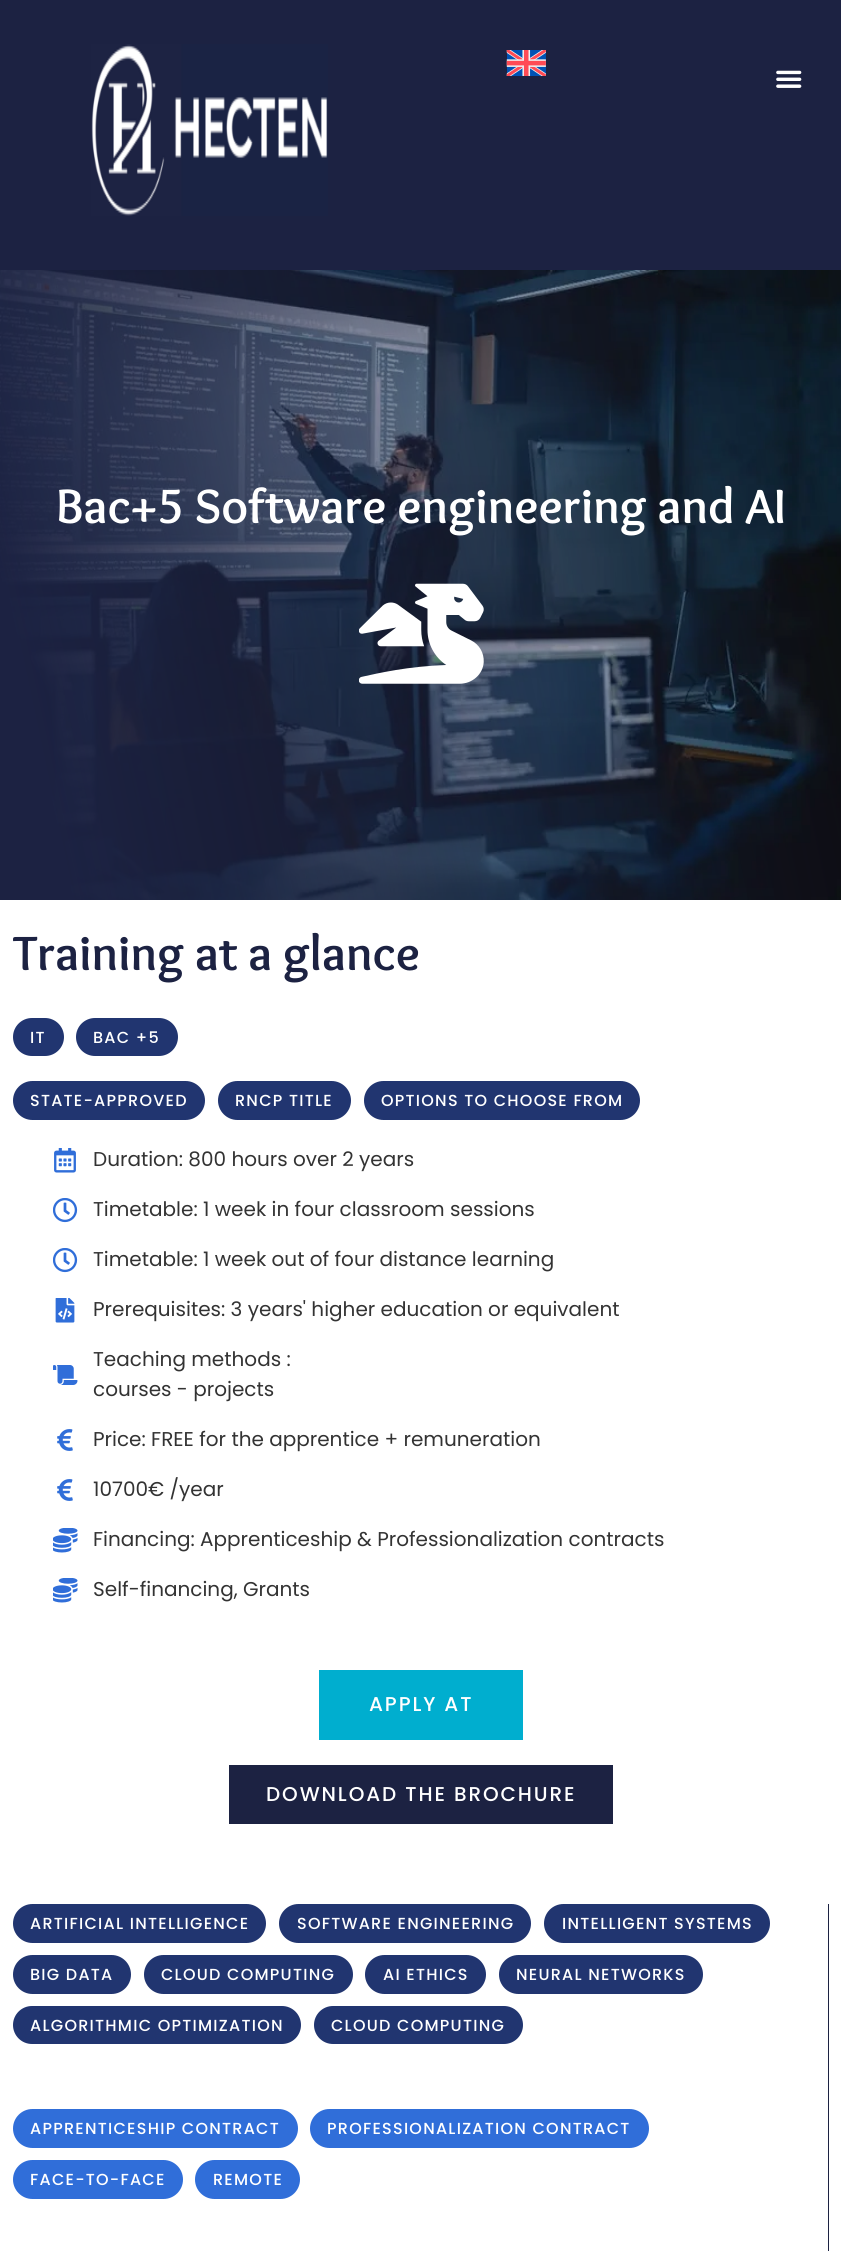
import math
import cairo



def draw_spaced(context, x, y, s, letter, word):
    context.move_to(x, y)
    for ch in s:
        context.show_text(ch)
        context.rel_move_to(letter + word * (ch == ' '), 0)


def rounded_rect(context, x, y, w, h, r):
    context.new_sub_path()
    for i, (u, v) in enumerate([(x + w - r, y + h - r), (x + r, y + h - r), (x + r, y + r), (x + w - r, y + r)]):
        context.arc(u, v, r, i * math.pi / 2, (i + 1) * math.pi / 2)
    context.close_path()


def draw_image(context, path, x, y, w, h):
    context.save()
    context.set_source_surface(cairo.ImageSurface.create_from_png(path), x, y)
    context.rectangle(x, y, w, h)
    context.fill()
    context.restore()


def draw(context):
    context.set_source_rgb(1, 1, 1)
    context.paint()
    context.set_source_rgb(28 / 255, 34 / 255, 66 / 255)
    context.rectangle(0, 0, 841, 270)
    context.fill()
    draw_image(context, "images/1.png", 91, 44, 237, 172)
    draw_image(context, "images/2.png", 506, 50, 40, 26)
    draw_image(context, "images/3.png", 776, 70, 26, 18)
    draw_image(context, "images/4.png", 0, 270, 841, 630)
    draw_image(context, "images/5.png", 359, 583, 125, 101)
    context.set_source_rgb(33 / 255, 53 / 255, 112 / 255)
    rounded_rect(context, 13, 1018, 51, 38, 19)
    context.fill()
    rounded_rect(context, 76, 1018, 102, 38, 19)
    context.fill()
    rounded_rect(context, 13, 1081, 192, 39, 19.5)
    context.fill()
    rounded_rect(context, 218, 1081, 133, 39, 19.5)
    context.fill()
    rounded_rect(context, 364, 1081, 276, 39, 19.5)
    context.fill()
    draw_image(context, "images/6.png", 54, 1148, 22, 25)
    draw_image(context, "images/7.png", 53, 1198, 25, 25)
    draw_image(context, "images/7.png", 53, 1248, 25, 25)
    draw_image(context, "images/8.png", 55, 1298, 20, 25)
    draw_image(context, "images/9.png", 53, 1365, 25, 20)
    draw_image(context, "images/10.png", 57, 1429, 16, 22)
    draw_image(context, "images/10.png", 57, 1479, 16, 22)
    draw_image(context, "images/11.png", 53, 1528, 25, 25)
    draw_image(context, "images/11.png", 53, 1578, 25, 25)
    context.set_source_rgb(0, 174 / 255, 207 / 255)
    context.rectangle(319, 1670, 204, 70)
    context.fill()
    context.set_source_rgb(28 / 255, 34 / 255, 66 / 255)
    context.rectangle(229, 1765, 384, 59)
    context.fill()
    context.rectangle(828, 1904, 1, 347)
    context.fill()
    context.set_source_rgb(33 / 255, 53 / 255, 112 / 255)
    rounded_rect(context, 13, 1904, 253, 39, 19.5)
    context.fill()
    rounded_rect(context, 279, 1904, 252, 39, 19.5)
    context.fill()
    rounded_rect(context, 544, 1904, 226, 39, 19.5)
    context.fill()
    rounded_rect(context, 13, 1955, 118, 39, 19.5)
    context.fill()
    rounded_rect(context, 144, 1955, 209, 39, 19.5)
    context.fill()
    rounded_rect(context, 365, 1955, 121, 39, 19.5)
    context.fill()
    rounded_rect(context, 499, 1955, 204, 39, 19.5)
    context.fill()
    rounded_rect(context, 13, 2006, 288, 38, 19)
    context.fill()
    rounded_rect(context, 314, 2006, 209, 38, 19)
    context.fill()
    context.set_source_rgb(48 / 255, 110 / 255, 217 / 255)
    rounded_rect(context, 13, 2109, 285, 39, 19.5)
    context.fill()
    rounded_rect(context, 310, 2109, 339, 39, 19.5)
    context.fill()
    rounded_rect(context, 13, 2160, 170, 39, 19.5)
    context.fill()
    rounded_rect(context, 195, 2160, 105, 39, 19.5)
    context.fill()
    context.select_font_face("Overlock", cairo.FontSlant.NORMAL, cairo.FontWeight.BOLD)
    context.set_font_size(50)
    context.set_source_rgb(1, 1, 1)
    context.move_to(56, 523)
    context.show_text("Bac+5 Software engineering and AI")
    context.set_source_rgb(28 / 255, 34 / 255, 66 / 255)
    context.move_to(13, 970)
    context.show_text("Training at a glance")
    context.select_font_face("Poppins Medium")
    context.set_font_size(16)
    context.set_source_rgb(1, 1, 1)
    draw_spaced(context, 30, 1043, "IT", 1.25, 0)
    draw_spaced(context, 93, 1043, "BAC +5", 1.25, 0)
    draw_spaced(context, 30, 1106, "STATE-APPROVED", 1.25, 0)
    draw_spaced(context, 235, 1106, "RNCP TITLE", 1.25, 0)
    draw_spaced(context, 381, 1106, "OPTIONS TO CHOOSE FROM", 1.25, 0)
    context.select_font_face("Poppins")
    context.set_font_size(20)
    context.set_source_rgb(51 / 255, 51 / 255, 51 / 255)
    context.move_to(93, 1166)
    context.show_text("Duration: 800 hours over 2 years")
    context.move_to(93, 1216)
    context.show_text("Timetable: 1 week in four classroom sessions")
    context.move_to(93, 1266)
    context.show_text("Timetable: 1 week out of four distance learning")
    context.move_to(93, 1316)
    context.show_text("Prerequisites: 3 years' higher education or equivalent")
    context.move_to(93, 1366)
    context.show_text("Teaching methods :")
    context.move_to(93, 1396)
    context.show_text("courses - projects")
    context.move_to(93, 1446)
    context.show_text("Price: FREE for the apprentice + remuneration")
    context.move_to(93, 1496)
    context.show_text("10700€ /year")
    context.move_to(93, 1546)
    context.show_text("Financing: Apprenticeship & Professionalization contracts")
    context.move_to(93, 1596)
    context.show_text("Self-financing, Grants")
    context.select_font_face("Poppins Medium")
    context.set_source_rgb(1, 1, 1)
    draw_spaced(context, 369, 1711, "APPLY AT", 1.9, 0)
    draw_spaced(context, 266, 1801, "DOWNLOAD THE BROCHURE", 1.9, 0)
    context.set_font_size(16)
    draw_spaced(context, 30, 1929, "ARTIFICIAL INTELLIGENCE", 1.25, 0)
    draw_spaced(context, 297, 1929, "SOFTWARE ENGINEERING", 1.25, 0)
    draw_spaced(context, 562, 1929, "INTELLIGENT SYSTEMS", 1.25, 0)
    draw_spaced(context, 30, 1980, "BIG DATA", 1.25, 0)
    draw_spaced(context, 161, 1980, "CLOUD COMPUTING", 1.25, 0)
    draw_spaced(context, 383, 1980, "AI ETHICS", 1.25, 0)
    draw_spaced(context, 516, 1980, "NEURAL NETWORKS", 1.25, 0)
    draw_spaced(context, 30, 2031, "ALGORITHMIC OPTIMIZATION", 1.25, 0)
    draw_spaced(context, 331, 2031, "CLOUD COMPUTING", 1.25, 0)
    draw_spaced(context, 30, 2134, "APPRENTICESHIP CONTRACT", 1.25, 0)
    draw_spaced(context, 327, 2134, "PROFESSIONALIZATION CONTRACT", 1.25, 0)
    draw_spaced(context, 30, 2185, "FACE-TO-FACE", 1.25, 0)
    draw_spaced(context, 213, 2185, "REMOTE", 1.25, 0)


surface = cairo.ImageSurface(cairo.Format.RGB24, 841, 2251)
context = cairo.Context(surface)
options = cairo.FontOptions()
options.set_hint_metrics(cairo.HintMetrics.OFF)
options.set_hint_style(cairo.HintStyle.NONE)
context.set_font_options(options)
context.set_miter_limit(4)
draw(context)
surface.write_to_png("out.png")
